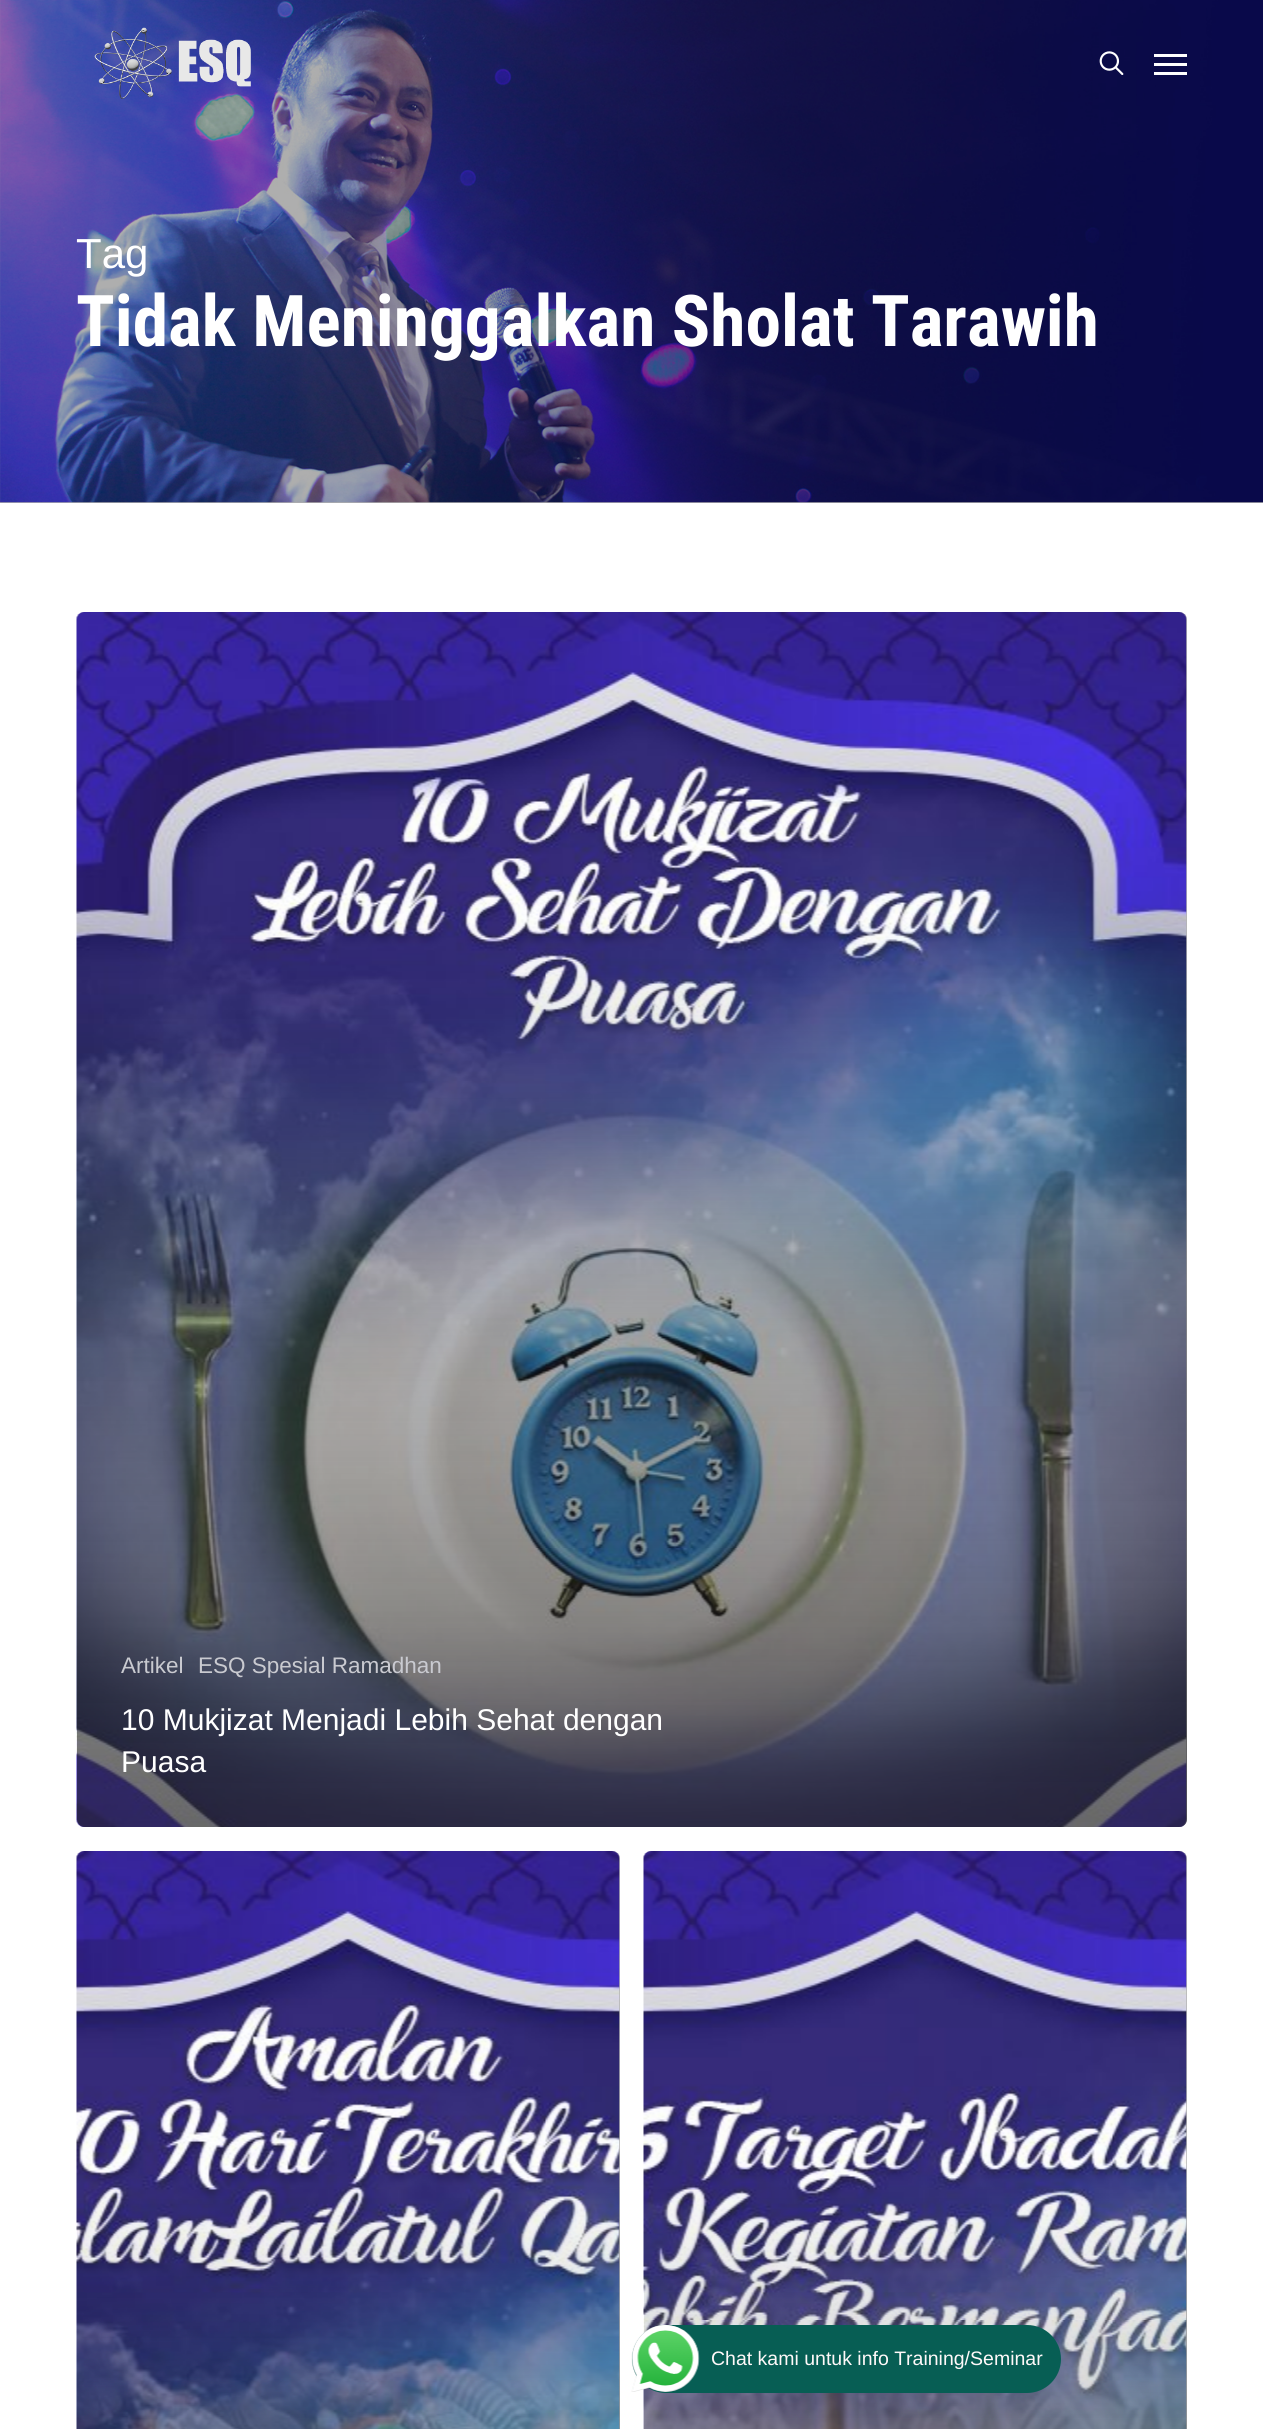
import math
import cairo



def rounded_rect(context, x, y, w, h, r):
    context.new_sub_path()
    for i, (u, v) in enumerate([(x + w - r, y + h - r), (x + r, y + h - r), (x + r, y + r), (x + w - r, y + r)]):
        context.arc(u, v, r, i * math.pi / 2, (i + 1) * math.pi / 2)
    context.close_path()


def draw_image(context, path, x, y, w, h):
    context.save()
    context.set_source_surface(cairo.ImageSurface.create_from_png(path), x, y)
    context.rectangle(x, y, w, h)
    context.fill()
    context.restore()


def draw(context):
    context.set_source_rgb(1, 1, 1)
    context.paint()
    context.set_source_rgb(175 / 255, 175 / 255, 175 / 255)
    context.rectangle(0, 502, 1263, 1)
    context.fill()
    draw_image(context, "images/3.png", 0, 0, 1263, 503)
    draw_image(context, "images/1.png", 94, 27, 157, 72)
    draw_image(context, "images/2.png", 1099, 51, 25, 24)
    context.set_source_rgb(1, 1, 1)
    context.rectangle(1154, 54, 33, 3)
    context.fill()
    context.rectangle(1154, 72, 33, 3)
    context.fill()
    context.rectangle(1154, 63, 33, 3)
    context.fill()
    context.set_source_rgb(179 / 255, 179 / 255, 179 / 255)
    rounded_rect(context, 77, 612, 1110, 1215, 8)
    context.fill()
    draw_image(context, "images/4.png", 76, 612, 1111, 1215)
    gradient = cairo.LinearGradient(634, 918, 635, 1833)
    gradient.add_color_stop_rgba(0, 35 / 255, 35 / 255, 35 / 255, 0)
    gradient.add_color_stop_rgba(1, 35 / 255, 35 / 255, 35 / 255, 0.65)
    context.set_source(gradient)
    context.new_path()
    context.move_to(77, 918)
    context.line_to(1187, 918)
    context.line_to(1187, 1819)
    context.curve_to(1187, 1823.5, 1183.5, 1827, 1179, 1827)
    context.line_to(85, 1827)
    context.curve_to(80.5, 1827, 77, 1823.5, 77, 1819)
    context.close_path()
    context.fill()
    context.set_source_rgb(179 / 255, 179 / 255, 179 / 255)
    rounded_rect(context, 77, 1851, 543, 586, 8)
    context.fill()
    draw_image(context, "images/5.png", 76, 1851, 544, 578)
    gradient = cairo.LinearGradient(349, 2157, 350, 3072)
    gradient.add_color_stop_rgba(0, 35 / 255, 35 / 255, 35 / 255, 0)
    gradient.add_color_stop_rgba(1, 35 / 255, 35 / 255, 35 / 255, 0.65)
    context.set_source(gradient)
    context.rectangle(77, 2187, 543, 242)
    context.fill()
    context.set_source_rgb(179 / 255, 179 / 255, 179 / 255)
    rounded_rect(context, 644, 1851, 543, 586, 8)
    context.fill()
    draw_image(context, "images/6.png", 643, 1851, 544, 578)
    gradient = cairo.LinearGradient(917, 2157, 917, 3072)
    gradient.add_color_stop_rgba(0, 35 / 255, 35 / 255, 35 / 255, 0)
    gradient.add_color_stop_rgba(1, 35 / 255, 35 / 255, 35 / 255, 0.65)
    context.set_source(gradient)
    context.rectangle(644, 2187, 543, 242)
    context.fill()
    context.set_source_rgb(7 / 255, 94 / 255, 84 / 255)
    rounded_rect(context, 632, 2325, 429, 68, 34)
    context.fill()
    draw_image(context, "images/7.png", 631, 2325, 69, 67)
    context.select_font_face("Liberation Sans")
    context.set_font_size(42)
    context.set_source_rgb(1, 1, 1)
    context.move_to(76, 268)
    context.show_text("Tag")
    context.select_font_face("Roboto Condensed", cairo.FontSlant.NORMAL, cairo.FontWeight.BOLD)
    context.set_font_size(71.4)
    context.move_to(76, 346)
    context.show_text("Tidak Meninggalkan Sholat Tarawih")
    context.select_font_face("Liberation Sans")
    context.set_font_size(22.5)
    context.set_source_rgb(201 / 255, 202 / 255, 208 / 255)
    context.move_to(121, 1673)
    context.show_text("Artikel")
    context.move_to(198, 1673)
    context.show_text("ESQ Spesial Ramadhan")
    context.set_font_size(30)
    context.set_source_rgb(1, 1, 1)
    context.move_to(121, 1730)
    context.show_text("10 Mukjizat Menjadi Lebih Sehat dengan")
    context.move_to(121, 1772)
    context.show_text("Puasa")
    context.set_font_size(19.5)
    context.set_source_rgb(1, 249 / 255, 249 / 255)
    context.move_to(711, 2365)
    context.show_text("Chat kami untuk info Training/Seminar")


surface = cairo.ImageSurface(cairo.Format.RGB24, 1263, 2429)
context = cairo.Context(surface)
options = cairo.FontOptions()
options.set_hint_metrics(cairo.HintMetrics.OFF)
options.set_hint_style(cairo.HintStyle.NONE)
context.set_font_options(options)
context.set_miter_limit(4)
draw(context)
surface.write_to_png("out.png")
